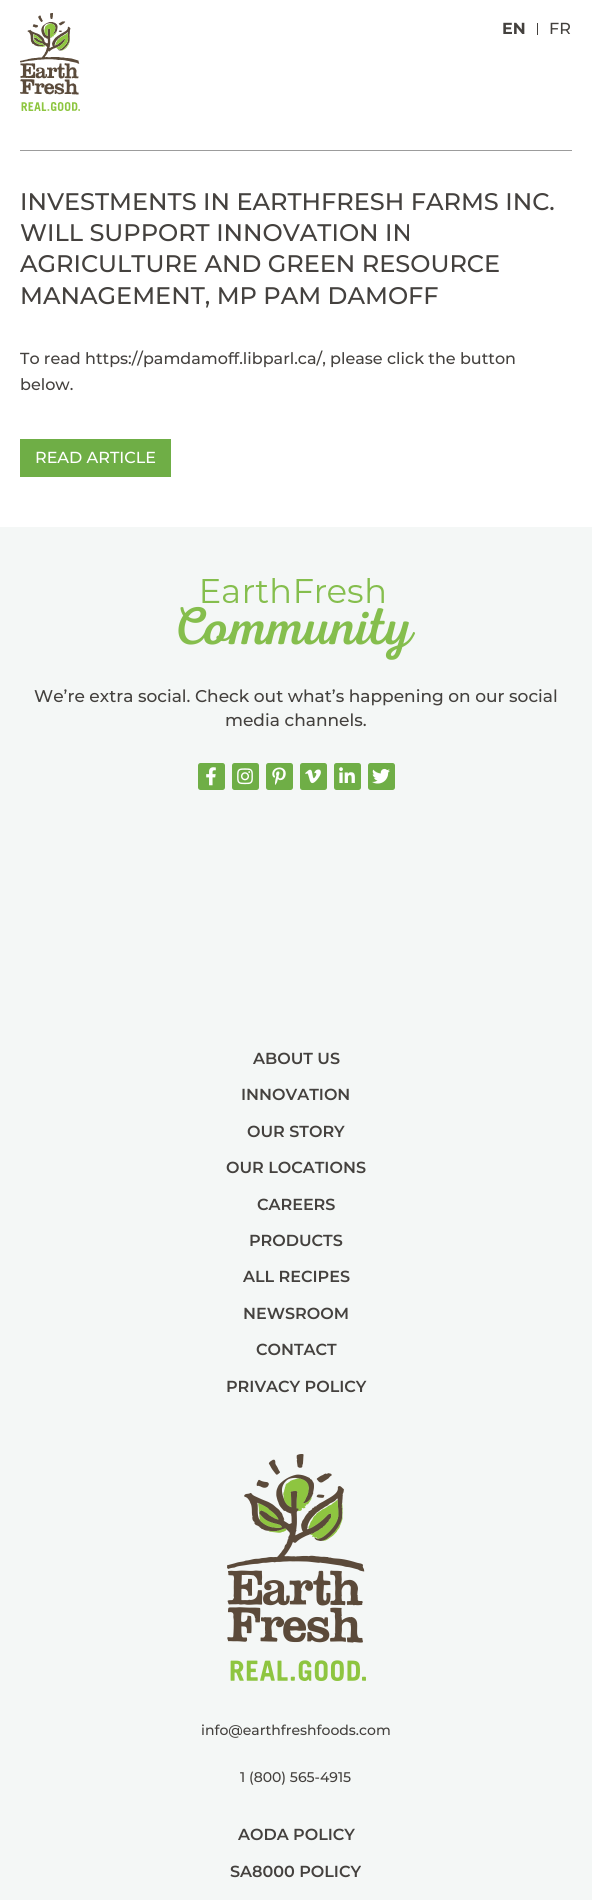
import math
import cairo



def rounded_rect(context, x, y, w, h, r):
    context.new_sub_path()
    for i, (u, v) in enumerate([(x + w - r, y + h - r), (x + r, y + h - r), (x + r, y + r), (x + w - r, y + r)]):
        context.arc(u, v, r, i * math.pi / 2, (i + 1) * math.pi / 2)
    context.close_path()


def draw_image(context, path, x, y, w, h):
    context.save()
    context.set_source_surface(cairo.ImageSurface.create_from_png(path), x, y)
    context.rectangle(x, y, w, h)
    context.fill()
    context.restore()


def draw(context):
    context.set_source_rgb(1, 1, 1)
    context.paint()
    draw_image(context, "images/1.png", 20, 13, 60, 98)
    context.set_source_rgb(68 / 255, 65 / 255, 62 / 255)
    context.rectangle(537, 23, 1, 12)
    context.fill()
    context.set_source_rgb(156 / 255, 156 / 255, 156 / 255)
    context.rectangle(20, 150, 552, 1)
    context.fill()
    context.set_source_rgb(111 / 255, 174 / 255, 70 / 255)
    context.rectangle(20, 439, 151, 38)
    context.fill()
    context.set_source_rgb(244 / 255, 247 / 255, 246 / 255)
    context.rectangle(0, 527, 592, 1373)
    context.fill()
    draw_image(context, "images/2.png", 178, 578, 237, 82)
    context.set_source_rgb(111 / 255, 174 / 255, 70 / 255)
    rounded_rect(context, 198, 763, 27, 27, 2.5)
    context.fill()
    draw_image(context, "images/3.png", 206, 767, 10, 19)
    rounded_rect(context, 232, 763, 27, 27, 2.5)
    context.fill()
    draw_image(context, "images/4.png", 237, 768, 16, 17)
    rounded_rect(context, 266, 763, 27, 27, 2.5)
    context.fill()
    draw_image(context, "images/5.png", 272, 767, 14, 18)
    rounded_rect(context, 300, 763, 27, 27, 2.5)
    context.fill()
    draw_image(context, "images/6.png", 305, 769, 16, 15)
    rounded_rect(context, 334, 763, 27, 27, 2.5)
    context.fill()
    draw_image(context, "images/7.png", 339, 767, 16, 16)
    rounded_rect(context, 368, 763, 27, 27, 2.5)
    context.fill()
    draw_image(context, "images/8.png", 372, 768, 18, 16)
    draw_image(context, "images/9.png", 227, 1454, 139, 227)
    context.select_font_face("Montserrat", cairo.FontSlant.NORMAL, cairo.FontWeight.BOLD)
    context.set_font_size(16)
    context.set_source_rgb(68 / 255, 65 / 255, 62 / 255)
    context.move_to(502, 34)
    context.show_text("EN")
    context.select_font_face("Montserrat Medium")
    context.move_to(549, 34)
    context.show_text("FR")
    context.set_font_size(24)
    context.move_to(20, 210)
    context.show_text("INVESTMENTS IN EARTHFRESH FARMS INC.")
    context.move_to(20, 241)
    context.show_text("WILL SUPPORT INNOVATION IN")
    context.move_to(20, 272)
    context.show_text("AGRICULTURE AND GREEN RESOURCE")
    context.move_to(20, 304)
    context.show_text("MANAGEMENT, MP PAM DAMOFF")
    context.set_font_size(16)
    context.move_to(20, 364)
    context.show_text("To read https://pamdamoff.libparl.ca/, please click the button")
    context.move_to(20, 390)
    context.show_text("below.")
    context.set_source_rgb(1, 1, 1)
    context.move_to(35, 463)
    context.show_text("READ ARTICLE")
    context.set_font_size(17)
    context.set_source_rgb(68 / 255, 65 / 255, 62 / 255)
    context.move_to(34, 702)
    context.show_text("We’re extra social. Check out what’s happening on our social")
    context.move_to(225, 726)
    context.show_text("media channels.")
    context.select_font_face("Montserrat SemiBold")
    context.set_font_size(16)
    context.move_to(253, 1064)
    context.show_text("ABOUT US")
    context.move_to(241, 1100)
    context.show_text("INNOVATION")
    context.move_to(247, 1137)
    context.show_text("OUR STORY")
    context.move_to(226, 1173)
    context.show_text("OUR LOCATIONS")
    context.move_to(257, 1210)
    context.show_text("CAREERS")
    context.move_to(249, 1246)
    context.show_text("PRODUCTS")
    context.move_to(243, 1282)
    context.show_text("ALL RECIPES")
    context.move_to(243, 1319)
    context.show_text("NEWSROOM")
    context.move_to(256, 1355)
    context.show_text("CONTACT")
    context.move_to(226, 1392)
    context.show_text("PRIVACY POLICY")
    context.select_font_face("Montserrat Medium")
    context.set_font_size(14)
    context.move_to(201, 1735)
    context.show_text("info@earthfreshfoods.com")
    context.move_to(240, 1782)
    context.show_text("1 (800) 565-4915")
    context.select_font_face("Montserrat SemiBold")
    context.set_font_size(16)
    context.move_to(238, 1840)
    context.show_text("AODA POLICY")
    context.move_to(230, 1877)
    context.show_text("SA8000 POLICY")


surface = cairo.ImageSurface(cairo.Format.RGB24, 592, 1900)
context = cairo.Context(surface)
options = cairo.FontOptions()
options.set_hint_metrics(cairo.HintMetrics.OFF)
options.set_hint_style(cairo.HintStyle.NONE)
context.set_font_options(options)
context.set_miter_limit(4)
draw(context)
surface.write_to_png("out.png")
